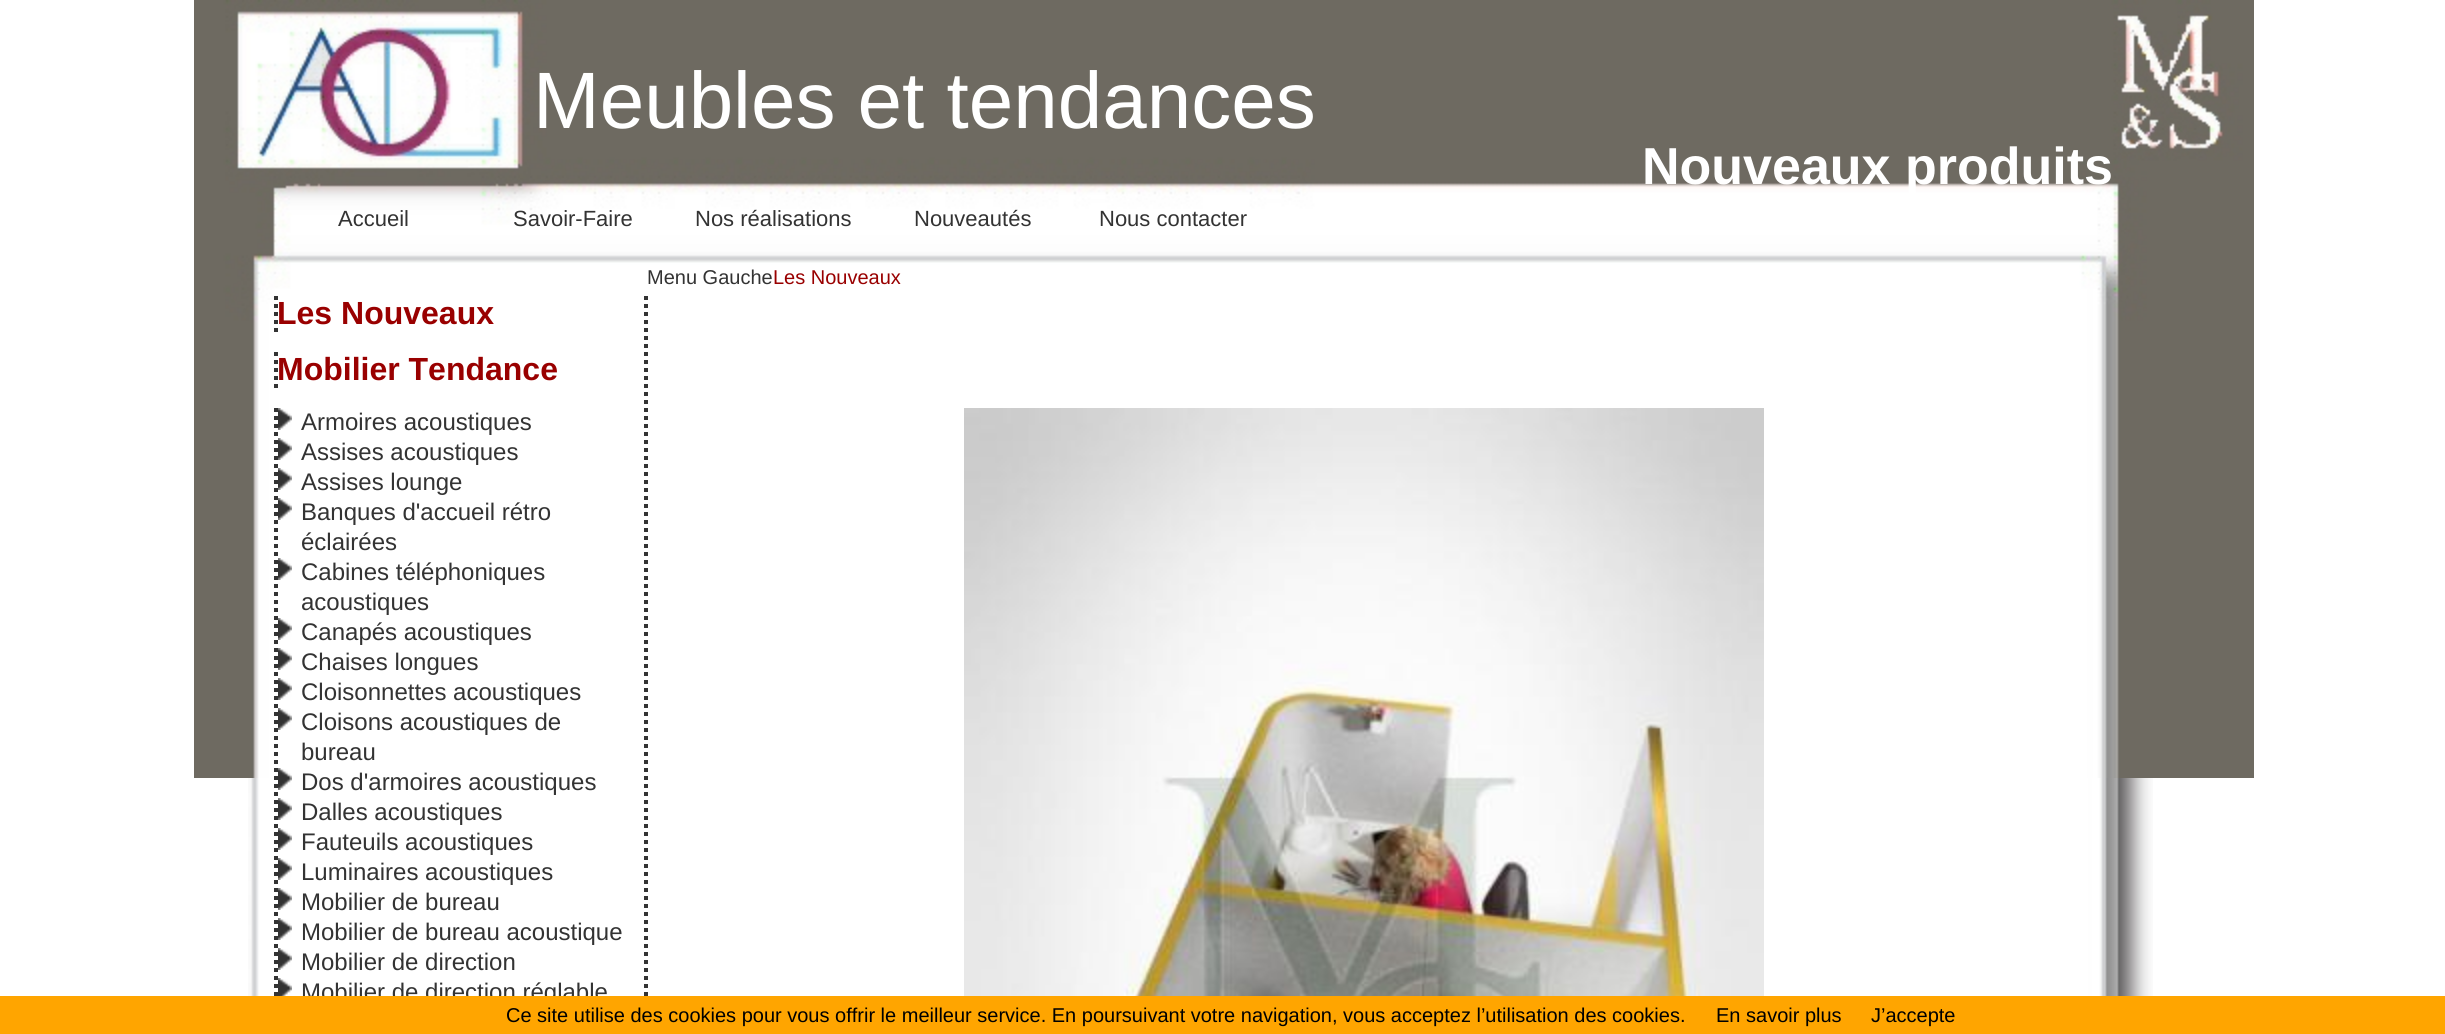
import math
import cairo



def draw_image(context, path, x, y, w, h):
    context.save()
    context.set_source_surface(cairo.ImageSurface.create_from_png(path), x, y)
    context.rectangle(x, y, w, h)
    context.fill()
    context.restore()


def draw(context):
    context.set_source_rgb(1, 1, 1)
    context.paint()
    draw_image(context, "images/1.png", 248, 778, 1905, 218)
    draw_image(context, "images/2.png", 194, 0, 2060, 778)
    context.new_path()
    context.move_to(646, 296)
    context.line_to(646, 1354)
    context.set_source_rgb(51 / 255, 51 / 255, 51 / 255)
    context.set_line_width(4)
    context.set_dash([4, 4])
    context.stroke()
    context.new_path()
    context.move_to(276, 296)
    context.line_to(276, 332)
    context.stroke()
    context.new_path()
    context.move_to(276, 352)
    context.line_to(276, 388)
    context.stroke()
    context.new_path()
    context.move_to(276, 408)
    context.line_to(276, 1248)
    context.stroke()
    draw_image(context, "images/3.png", 278, 408, 14, 22)
    draw_image(context, "images/3.png", 278, 438, 14, 22)
    draw_image(context, "images/3.png", 278, 468, 14, 22)
    draw_image(context, "images/3.png", 278, 498, 14, 22)
    draw_image(context, "images/3.png", 278, 558, 14, 22)
    draw_image(context, "images/3.png", 278, 618, 14, 22)
    draw_image(context, "images/3.png", 278, 648, 14, 22)
    draw_image(context, "images/3.png", 278, 678, 14, 22)
    draw_image(context, "images/3.png", 278, 708, 14, 22)
    draw_image(context, "images/3.png", 278, 768, 14, 22)
    draw_image(context, "images/3.png", 278, 798, 14, 22)
    draw_image(context, "images/3.png", 278, 828, 14, 22)
    draw_image(context, "images/3.png", 278, 858, 14, 22)
    draw_image(context, "images/3.png", 278, 888, 14, 22)
    draw_image(context, "images/3.png", 278, 918, 14, 22)
    draw_image(context, "images/3.png", 278, 948, 14, 22)
    draw_image(context, "images/4.png", 278, 978, 14, 18)
    draw_image(context, "images/5.png", 964, 408, 800, 588)
    context.select_font_face("Liberation Sans")
    context.set_font_size(80)
    context.set_source_rgb(1, 1, 1)
    context.move_to(533, 128)
    context.show_text("Meubles et tendances")
    context.select_font_face("Liberation Sans", cairo.FontSlant.NORMAL, cairo.FontWeight.BOLD)
    context.set_font_size(52)
    context.move_to(1642, 184)
    context.show_text("Nouveaux produits")
    context.select_font_face("Liberation Sans")
    context.set_font_size(22)
    context.set_source_rgb(51 / 255, 51 / 255, 51 / 255)
    context.move_to(338, 226)
    context.show_text("Accueil")
    context.move_to(513, 226)
    context.show_text("Savoir-Faire")
    context.move_to(695, 226)
    context.show_text("Nos réalisations")
    context.move_to(914, 226)
    context.show_text("Nouveautés")
    context.move_to(1099, 226)
    context.show_text("Nous contacter")
    context.set_font_size(20)
    context.move_to(647, 284)
    context.show_text("Menu Gauche")
    context.set_source_rgb(153 / 255, 0, 0)
    context.move_to(773, 284)
    context.show_text("Les Nouveaux")
    context.select_font_face("Liberation Sans", cairo.FontSlant.NORMAL, cairo.FontWeight.BOLD)
    context.set_font_size(32)
    context.move_to(277, 324)
    context.show_text("Les Nouveaux")
    context.move_to(277, 380)
    context.show_text("Mobilier Tendance")
    context.select_font_face("Liberation Sans")
    context.set_font_size(24)
    context.set_source_rgb(51 / 255, 51 / 255, 51 / 255)
    context.move_to(301, 430)
    context.show_text("Armoires acoustiques")
    context.move_to(301, 460)
    context.show_text("Assises acoustiques")
    context.move_to(301, 490)
    context.show_text("Assises lounge")
    context.move_to(301, 520)
    context.show_text("Banques d'accueil rétro")
    context.move_to(301, 550)
    context.show_text("éclairées")
    context.move_to(301, 580)
    context.show_text("Cabines téléphoniques")
    context.move_to(301, 610)
    context.show_text("acoustiques")
    context.move_to(301, 640)
    context.show_text("Canapés acoustiques")
    context.move_to(301, 670)
    context.show_text("Chaises longues")
    context.move_to(301, 700)
    context.show_text("Cloisonnettes acoustiques")
    context.move_to(301, 730)
    context.show_text("Cloisons acoustiques de")
    context.move_to(301, 760)
    context.show_text("bureau")
    context.move_to(301, 790)
    context.show_text("Dos d'armoires acoustiques")
    context.move_to(301, 820)
    context.show_text("Dalles acoustiques")
    context.move_to(301, 850)
    context.show_text("Fauteuils acoustiques")
    context.move_to(301, 880)
    context.show_text("Luminaires acoustiques")
    context.move_to(301, 910)
    context.show_text("Mobilier de bureau")
    context.move_to(301, 940)
    context.show_text("Mobilier de bureau acoustique")
    context.move_to(301, 970)
    context.show_text("Mobilier de direction")
    context.move_to(301, 1000)
    context.show_text("Mobilier de direction réglable")
    context.set_source_rgb(1, 165 / 255, 0)
    context.rectangle(0, 996, 2445, 38)
    context.fill()
    context.set_font_size(20)
    context.set_source_rgb(0, 0, 0)
    context.move_to(506, 1022)
    context.show_text("Ce site utilise des cookies pour vous offrir le meilleur service. En poursuivant votre navigation, vous acceptez l’utilisation des cookies.")
    context.move_to(1716, 1022)
    context.show_text("En savoir plus")
    context.move_to(1871, 1022)
    context.show_text("J’accepte")


surface = cairo.ImageSurface(cairo.Format.RGB24, 2445, 1034)
context = cairo.Context(surface)
options = cairo.FontOptions()
options.set_hint_metrics(cairo.HintMetrics.OFF)
options.set_hint_style(cairo.HintStyle.NONE)
context.set_font_options(options)
context.set_miter_limit(4)
draw(context)
surface.write_to_png("out.png")
